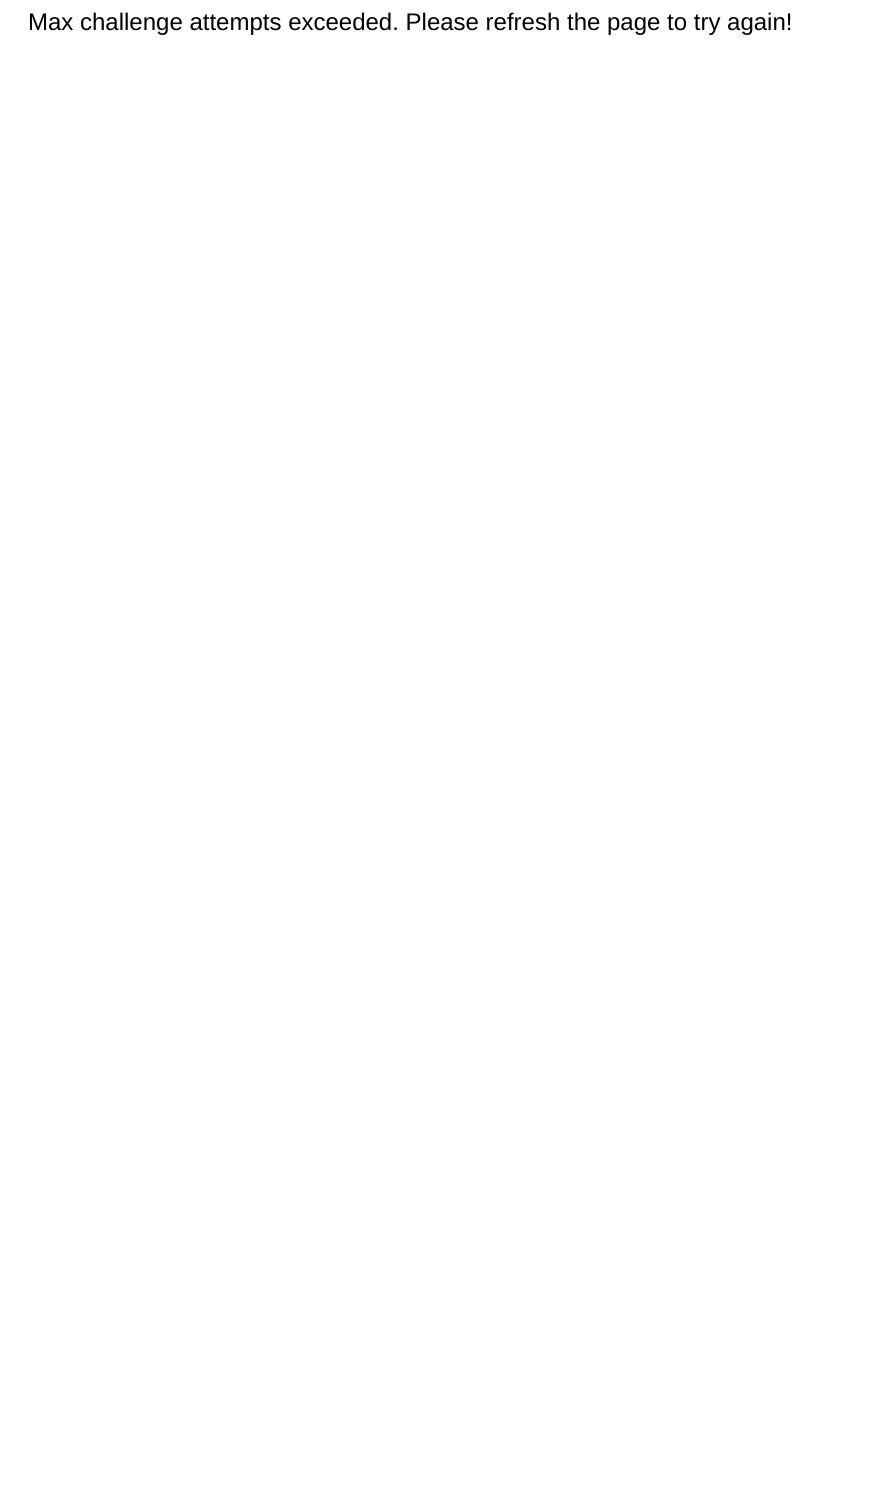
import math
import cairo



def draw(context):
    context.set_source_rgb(1, 1, 1)
    context.paint()
    context.select_font_face("Liberation Sans")
    context.set_font_size(24)
    context.set_source_rgb(0, 0, 0)
    context.move_to(28, 30)
    context.show_text("Max challenge attempts exceeded. Please refresh the page to try again!")


surface = cairo.ImageSurface(cairo.Format.RGB24, 875, 1504)
context = cairo.Context(surface)
options = cairo.FontOptions()
options.set_hint_metrics(cairo.HintMetrics.OFF)
options.set_hint_style(cairo.HintStyle.NONE)
context.set_font_options(options)
context.set_miter_limit(4)
draw(context)
surface.write_to_png("out.png")
